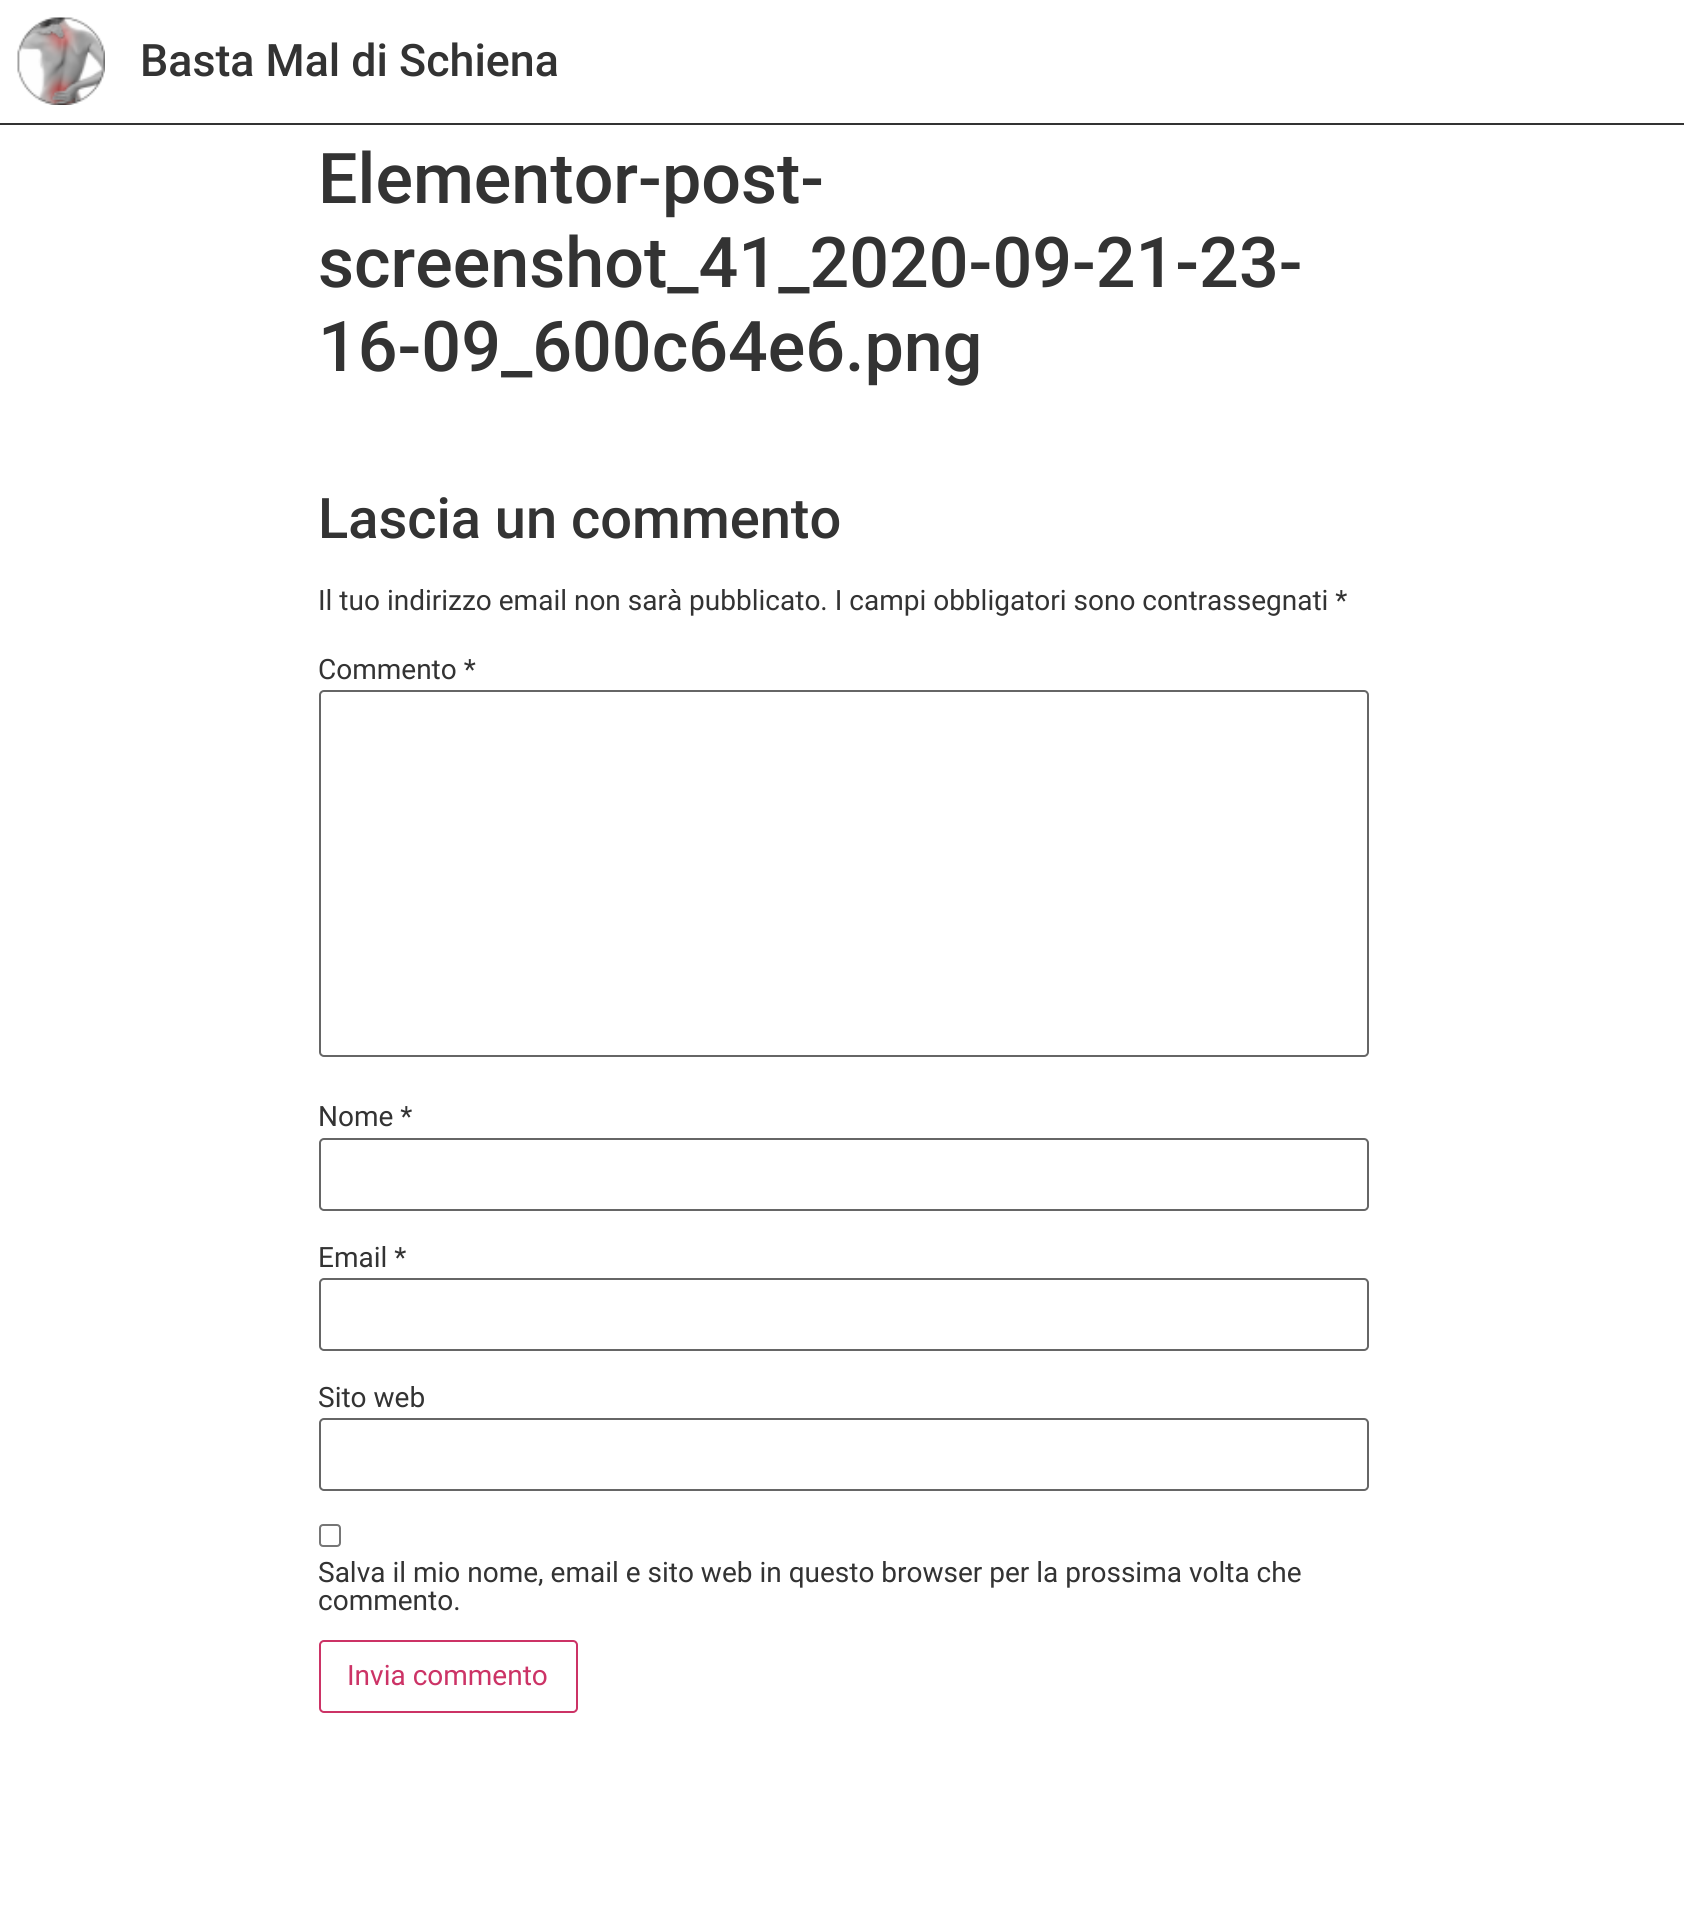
import math
import cairo



def rounded_rect(context, x, y, w, h, r):
    context.new_sub_path()
    for i, (u, v) in enumerate([(x + w - r, y + h - r), (x + r, y + h - r), (x + r, y + r), (x + w - r, y + r)]):
        context.arc(u, v, r, i * math.pi / 2, (i + 1) * math.pi / 2)
    context.close_path()


def draw_image(context, path, x, y, w, h):
    context.save()
    context.set_source_surface(cairo.ImageSurface.create_from_png(path), x, y)
    context.rectangle(x, y, w, h)
    context.fill()
    context.restore()


def draw(context):
    context.set_source_rgb(1, 1, 1)
    context.paint()
    context.set_source_rgb(51 / 255, 51 / 255, 51 / 255)
    context.rectangle(0, 123, 1684, 2)
    context.fill()
    draw_image(context, "images/1.png", 17, 17, 88, 88)
    rounded_rect(context, 320, 691, 1048, 365, 4)
    context.set_source_rgb(102 / 255, 102 / 255, 102 / 255)
    context.stroke()
    rounded_rect(context, 320, 1139, 1048, 71, 4)
    context.stroke()
    rounded_rect(context, 320, 1279, 1048, 71, 4)
    context.stroke()
    rounded_rect(context, 320, 1419, 1048, 71, 4)
    context.stroke()
    rounded_rect(context, 320, 1525, 20, 21, 3)
    context.set_source_rgb(118 / 255, 118 / 255, 118 / 255)
    context.stroke()
    rounded_rect(context, 320, 1641, 257, 71, 4)
    context.set_source_rgb(204 / 255, 51 / 255, 102 / 255)
    context.stroke()
    context.select_font_face("Roboto Medium")
    context.set_font_size(44.75)
    context.set_source_rgb(51 / 255, 51 / 255, 51 / 255)
    context.move_to(140, 76)
    context.show_text("Basta Mal di Schiena")
    context.set_font_size(70)
    context.move_to(318, 203)
    context.show_text("Elementor-post-")
    context.move_to(318, 287)
    context.show_text("screenshot_41_2020-09-21-23-")
    context.move_to(318, 371)
    context.show_text("16-09_600c64e6.png")
    context.set_font_size(56)
    context.move_to(318, 538)
    context.show_text("Lascia un commento")
    context.select_font_face("Roboto")
    context.set_font_size(28)
    context.move_to(318, 610)
    context.show_text("Il tuo indirizzo email non sarà pubblicato. I campi obbligatori sono contrassegnati *")
    context.move_to(318, 679)
    context.show_text("Commento *")
    context.move_to(318, 1126)
    context.show_text("Nome *")
    context.move_to(318, 1267)
    context.show_text("Email *")
    context.move_to(318, 1407)
    context.show_text("Sito web")
    context.move_to(318, 1582)
    context.show_text("Salva il mio nome, email e sito web in questo browser per la prossima volta che")
    context.move_to(318, 1610)
    context.show_text("commento.")
    context.set_source_rgb(204 / 255, 51 / 255, 102 / 255)
    context.move_to(347, 1685)
    context.show_text("Invia commento")


surface = cairo.ImageSurface(cairo.Format.RGB24, 1684, 1923)
context = cairo.Context(surface)
options = cairo.FontOptions()
options.set_hint_metrics(cairo.HintMetrics.OFF)
options.set_hint_style(cairo.HintStyle.NONE)
context.set_font_options(options)
context.set_miter_limit(4)
draw(context)
surface.write_to_png("out.png")
